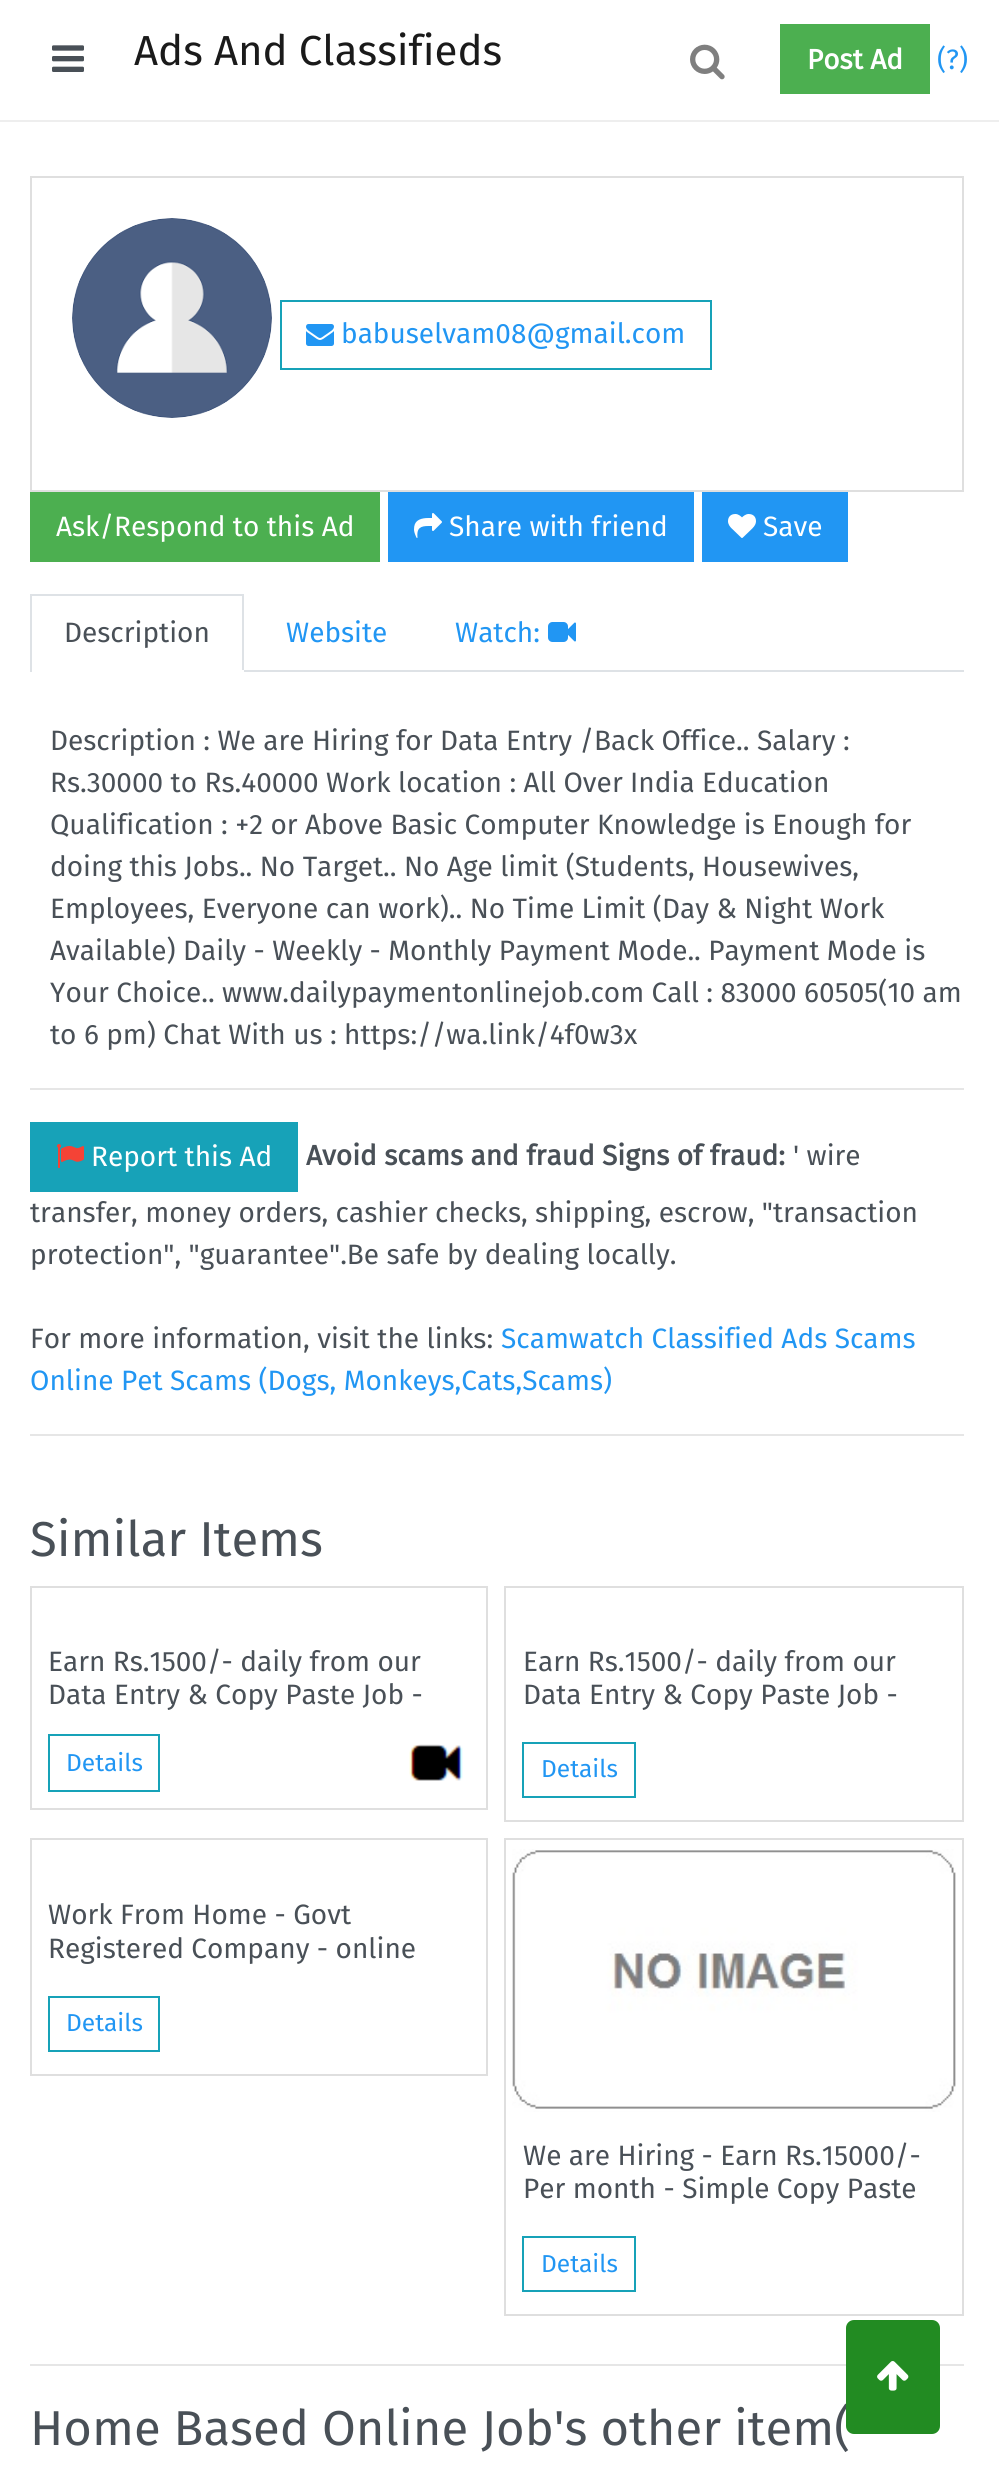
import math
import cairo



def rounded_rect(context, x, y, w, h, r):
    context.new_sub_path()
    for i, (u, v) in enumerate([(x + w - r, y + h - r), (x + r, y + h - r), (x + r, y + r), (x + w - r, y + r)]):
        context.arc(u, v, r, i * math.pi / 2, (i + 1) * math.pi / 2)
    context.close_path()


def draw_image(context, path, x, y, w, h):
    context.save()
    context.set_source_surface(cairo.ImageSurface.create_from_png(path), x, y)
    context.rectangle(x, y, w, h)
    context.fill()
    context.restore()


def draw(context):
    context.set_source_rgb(1, 1, 1)
    context.paint()
    context.set_source_rgb(238 / 255, 238 / 255, 238 / 255)
    context.rectangle(0, 120, 999, 2)
    context.fill()
    draw_image(context, "images/1.png", 52, 45, 32, 27)
    draw_image(context, "images/2.png", 690, 44, 35, 36)
    context.set_source_rgb(76 / 255, 175 / 255, 80 / 255)
    context.rectangle(780, 24, 150, 70)
    context.fill()
    context.rectangle(31, 177, 932, 314)
    context.set_source_rgb(223 / 255, 223 / 255, 223 / 255)
    context.stroke()
    draw_image(context, "images/3.png", 72, 218, 200, 200)
    context.rectangle(281, 301, 430, 68)
    context.set_source_rgb(23 / 255, 162 / 255, 184 / 255)
    context.stroke()
    draw_image(context, "images/4.png", 306, 324, 28, 22)
    context.set_source_rgb(76 / 255, 175 / 255, 80 / 255)
    context.rectangle(30, 492, 350, 70)
    context.fill()
    context.set_source_rgb(33 / 255, 150 / 255, 243 / 255)
    context.rectangle(388, 492, 306, 70)
    context.fill()
    draw_image(context, "images/5.png", 414, 513, 28, 25)
    context.rectangle(702, 492, 146, 70)
    context.fill()
    draw_image(context, "images/6.png", 728, 514, 28, 24)
    context.set_source_rgb(222 / 255, 226 / 255, 230 / 255)
    context.rectangle(244, 670, 720, 2)
    context.fill()
    context.rectangle(30, 594, 214, 2)
    context.fill()
    context.rectangle(242, 594, 2, 78)
    context.fill()
    context.set_source_rgb(1, 1, 1)
    context.rectangle(242, 670, 2, 2)
    context.fill()
    context.set_source_rgb(222 / 255, 226 / 255, 230 / 255)
    context.rectangle(30, 594, 2, 78)
    context.fill()
    draw_image(context, "images/7.png", 548, 622, 28, 20)
    context.set_source_rgb(230 / 255, 230 / 255, 230 / 255)
    context.rectangle(30, 1088, 934, 2)
    context.fill()
    context.set_source_rgb(23 / 255, 162 / 255, 184 / 255)
    context.rectangle(30, 1122, 268, 70)
    context.fill()
    draw_image(context, "images/8.png", 57, 1144, 27, 24)
    context.set_source_rgb(230 / 255, 230 / 255, 230 / 255)
    context.rectangle(30, 1434, 934, 2)
    context.fill()
    context.rectangle(31, 1587, 456, 222)
    context.set_source_rgb(223 / 255, 223 / 255, 223 / 255)
    context.stroke()
    context.rectangle(49, 1735, 110, 56)
    context.set_source_rgb(23 / 255, 162 / 255, 184 / 255)
    context.stroke()
    draw_image(context, "images/9.png", 409, 1744, 54, 37)
    context.rectangle(505, 1587, 458, 234)
    context.set_source_rgb(223 / 255, 223 / 255, 223 / 255)
    context.stroke()
    context.rectangle(523, 1743, 112, 54)
    context.set_source_rgb(23 / 255, 162 / 255, 184 / 255)
    context.stroke()
    context.rectangle(31, 1839, 456, 236)
    context.set_source_rgb(223 / 255, 223 / 255, 223 / 255)
    context.stroke()
    context.rectangle(49, 1997, 110, 54)
    context.set_source_rgb(23 / 255, 162 / 255, 184 / 255)
    context.stroke()
    context.rectangle(505, 1839, 458, 476)
    context.set_source_rgb(223 / 255, 223 / 255, 223 / 255)
    context.stroke()
    draw_image(context, "images/10.png", 512, 1849, 444, 263)
    context.rectangle(523, 2237, 112, 54)
    context.set_source_rgb(23 / 255, 162 / 255, 184 / 255)
    context.stroke()
    context.set_source_rgb(230 / 255, 230 / 255, 230 / 255)
    context.rectangle(30, 2364, 934, 2)
    context.fill()
    context.select_font_face("Fira Sans")
    context.set_font_size(42)
    context.set_source_rgb(26 / 255, 26 / 255, 26 / 255)
    context.move_to(134, 65)
    context.show_text("Ads And Classifieds")
    context.select_font_face("Fira Sans", cairo.FontSlant.NORMAL, cairo.FontWeight.BOLD)
    context.set_font_size(28)
    context.set_source_rgb(1, 1, 1)
    context.move_to(807, 69)
    context.show_text("Post Ad")
    context.select_font_face("Fira Sans")
    context.set_source_rgb(33 / 255, 150 / 255, 243 / 255)
    context.move_to(937, 69)
    context.show_text("(?)")
    context.move_to(341, 343)
    context.show_text("babuselvam08@gmail.com")
    context.set_source_rgb(1, 1, 1)
    context.move_to(56, 536)
    context.show_text("Ask/Respond to this Ad")
    context.move_to(449, 536)
    context.show_text("Share with friend")
    context.move_to(763, 536)
    context.show_text("Save")
    context.set_source_rgb(73 / 255, 80 / 255, 87 / 255)
    context.move_to(64, 642)
    context.show_text("Description")
    context.set_source_rgb(33 / 255, 150 / 255, 243 / 255)
    context.move_to(286, 642)
    context.show_text("Website")
    context.move_to(455, 642)
    context.show_text("Watch:")
    context.set_source_rgb(73 / 255, 80 / 255, 87 / 255)
    context.move_to(50, 750)
    context.show_text("Description : We are Hiring for Data Entry /Back Office.. Salary :")
    context.move_to(50, 792)
    context.show_text("Rs.30000 to Rs.40000 Work location : All Over India Education")
    context.move_to(50, 834)
    context.show_text("Qualification : +2 or Above Basic Computer Knowledge is Enough for")
    context.move_to(50, 876)
    context.show_text("doing this Jobs.. No Target.. No Age limit (Students, Housewives,")
    context.move_to(50, 918)
    context.show_text("Employees, Everyone can work).. No Time Limit (Day & Night Work")
    context.move_to(50, 960)
    context.show_text("Available) Daily - Weekly - Monthly Payment Mode.. Payment Mode is")
    context.move_to(50, 1002)
    context.show_text("Your Choice.. www.dailypaymentonlinejob.com Call : 83000 60505(10 am")
    context.move_to(50, 1044)
    context.show_text("to 6 pm) Chat With us : https://wa.link/4f0w3x")
    context.set_source_rgb(1, 1, 1)
    context.move_to(91, 1166)
    context.show_text("Report this Ad")
    context.select_font_face("Fira Sans", cairo.FontSlant.NORMAL, cairo.FontWeight.BOLD)
    context.set_source_rgb(73 / 255, 80 / 255, 87 / 255)
    context.move_to(306, 1165)
    context.show_text("Avoid scams and fraud Signs of fraud:")
    context.select_font_face("Fira Sans")
    context.move_to(793, 1165)
    context.show_text("' wire")
    context.move_to(30, 1222)
    context.show_text("transfer, money orders, cashier checks, shipping, escrow, \"transaction")
    context.move_to(30, 1264)
    context.show_text("protection\", \"guarantee\".Be safe by dealing locally.")
    context.move_to(30, 1348)
    context.show_text("For more information, visit the links:")
    context.set_source_rgb(33 / 255, 150 / 255, 243 / 255)
    context.move_to(501, 1348)
    context.show_text("Scamwatch Classified Ads Scams")
    context.move_to(30, 1390)
    context.show_text("Online Pet Scams (Dogs, Monkeys,Cats,Scams)")
    context.set_font_size(49)
    context.set_source_rgb(73 / 255, 80 / 255, 87 / 255)
    context.move_to(30, 1556)
    context.show_text("Similar Items")
    context.set_font_size(28)
    context.move_to(48, 1671)
    context.show_text("Earn Rs.1500/- daily from our")
    context.move_to(48, 1704)
    context.show_text("Data Entry & Copy Paste Job -")
    context.set_font_size(24.5)
    context.set_source_rgb(33 / 255, 150 / 255, 243 / 255)
    context.move_to(66, 1771)
    context.show_text("Details")
    context.set_font_size(28)
    context.set_source_rgb(73 / 255, 80 / 255, 87 / 255)
    context.move_to(523, 1671)
    context.show_text("Earn Rs.1500/- daily from our")
    context.move_to(523, 1704)
    context.show_text("Data Entry & Copy Paste Job -")
    context.set_font_size(24.5)
    context.set_source_rgb(33 / 255, 150 / 255, 243 / 255)
    context.move_to(541, 1777)
    context.show_text("Details")
    context.set_font_size(28)
    context.set_source_rgb(73 / 255, 80 / 255, 87 / 255)
    context.move_to(48, 1924)
    context.show_text("Work From Home - Govt")
    context.move_to(48, 1958)
    context.show_text("Registered Company - online")
    context.set_font_size(24.5)
    context.set_source_rgb(33 / 255, 150 / 255, 243 / 255)
    context.move_to(66, 2031)
    context.show_text("Details")
    context.set_font_size(28)
    context.set_source_rgb(73 / 255, 80 / 255, 87 / 255)
    context.move_to(523, 2165)
    context.show_text("We are Hiring - Earn Rs.15000/-")
    context.move_to(523, 2198)
    context.show_text("Per month - Simple Copy Paste")
    context.set_font_size(24.5)
    context.set_source_rgb(33 / 255, 150 / 255, 243 / 255)
    context.move_to(541, 2272)
    context.show_text("Details")
    context.set_font_size(49)
    context.set_source_rgb(73 / 255, 80 / 255, 87 / 255)
    context.move_to(30, 2445)
    context.show_text("Home Based Online Job's other item(")
    context.set_source_rgb(34 / 255, 139 / 255, 34 / 255)
    rounded_rect(context, 846, 2320, 94, 114, 8)
    context.fill()
    draw_image(context, "images/11.png", 877, 2361, 32, 30)


surface = cairo.ImageSurface(cairo.Format.RGB24, 999, 2473)
context = cairo.Context(surface)
options = cairo.FontOptions()
options.set_hint_metrics(cairo.HintMetrics.OFF)
options.set_hint_style(cairo.HintStyle.NONE)
context.set_font_options(options)
context.set_miter_limit(4)
draw(context)
surface.write_to_png("out.png")
